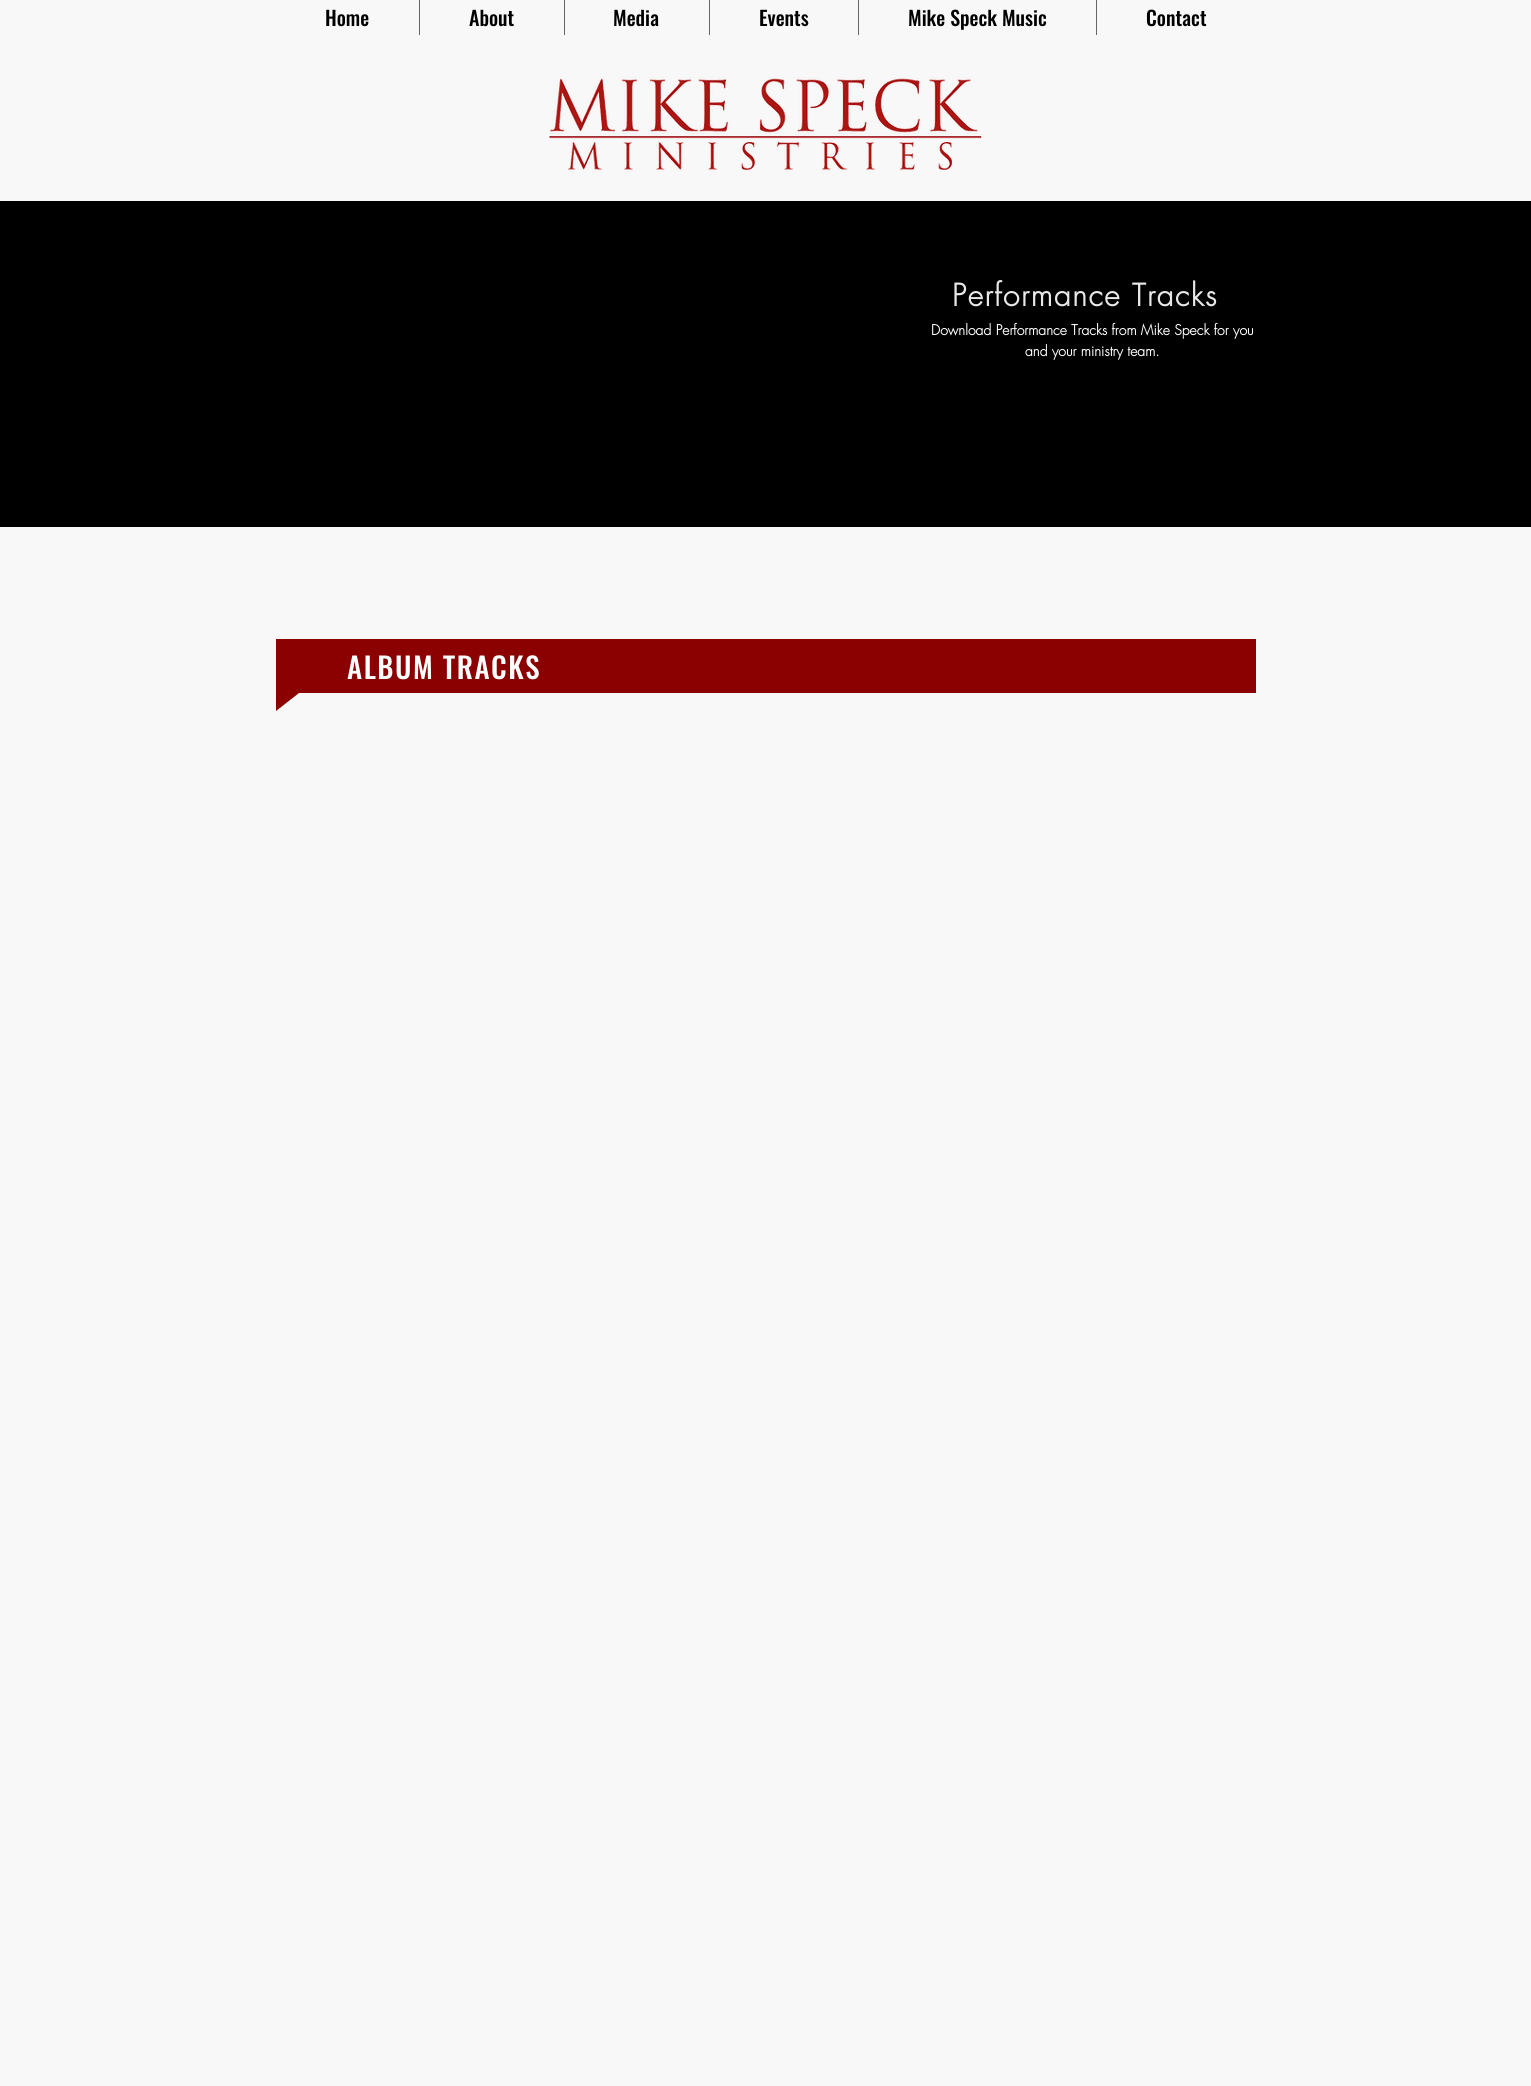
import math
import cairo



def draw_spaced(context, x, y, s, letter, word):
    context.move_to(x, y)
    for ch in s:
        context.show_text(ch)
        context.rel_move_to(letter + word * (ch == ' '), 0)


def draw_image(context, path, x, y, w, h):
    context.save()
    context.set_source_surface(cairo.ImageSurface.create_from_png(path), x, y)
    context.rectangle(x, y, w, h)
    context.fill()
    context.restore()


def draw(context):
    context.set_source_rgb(248 / 255, 248 / 255, 248 / 255)
    context.paint()
    context.set_source_rgb(101 / 255, 101 / 255, 101 / 255)
    context.rectangle(419, 0, 1, 35)
    context.fill()
    context.rectangle(564, 0, 1, 35)
    context.fill()
    context.rectangle(709, 0, 1, 35)
    context.fill()
    context.rectangle(858, 0, 1, 35)
    context.fill()
    context.rectangle(1096, 0, 1, 35)
    context.fill()
    draw_image(context, "images/1.png", 549, 77, 433, 95)
    context.set_source_rgb(0, 0, 0)
    context.rectangle(0, 201, 1531, 326)
    context.fill()
    context.set_source_rgb(139 / 255, 0, 0)
    context.rectangle(276, 639, 980, 54)
    context.fill()
    context.new_path()
    context.move_to(276, 693)
    context.line_to(299, 693)
    context.line_to(276, 711)
    context.close_path()
    context.fill()
    context.select_font_face("Oswald Medium")
    context.set_font_size(20)
    context.set_source_rgb(0, 0, 0)
    context.move_to(325, 26)
    context.show_text("Home")
    context.move_to(469, 26)
    context.show_text("About")
    context.move_to(613, 26)
    context.show_text("Media")
    context.move_to(759, 26)
    context.show_text("Events")
    context.move_to(908, 26)
    context.show_text("Mike Speck Music")
    context.move_to(1146, 26)
    context.show_text("Contact")
    context.select_font_face("futura", cairo.FontSlant.NORMAL, cairo.FontWeight.BOLD)
    context.set_font_size(30)
    context.set_source_rgb(232 / 255, 232 / 255, 232 / 255)
    draw_spaced(context, 952, 306, "Performance Tracks", 1.5, 0)
    context.set_font_size(14)
    context.set_source_rgb(1, 1, 1)
    context.move_to(931, 335)
    context.show_text("Download Performance Tracks from Mike Speck for you")
    context.move_to(1025, 356)
    context.show_text("and your ministry team.")
    context.select_font_face("Oswald Medium")
    context.set_font_size(29)
    draw_spaced(context, 347, 679, "ALBUM TRACKS", 1.5, 0)


surface = cairo.ImageSurface(cairo.Format.RGB24, 1531, 2086)
context = cairo.Context(surface)
options = cairo.FontOptions()
options.set_hint_metrics(cairo.HintMetrics.OFF)
options.set_hint_style(cairo.HintStyle.NONE)
context.set_font_options(options)
context.set_miter_limit(4)
draw(context)
surface.write_to_png("out.png")
